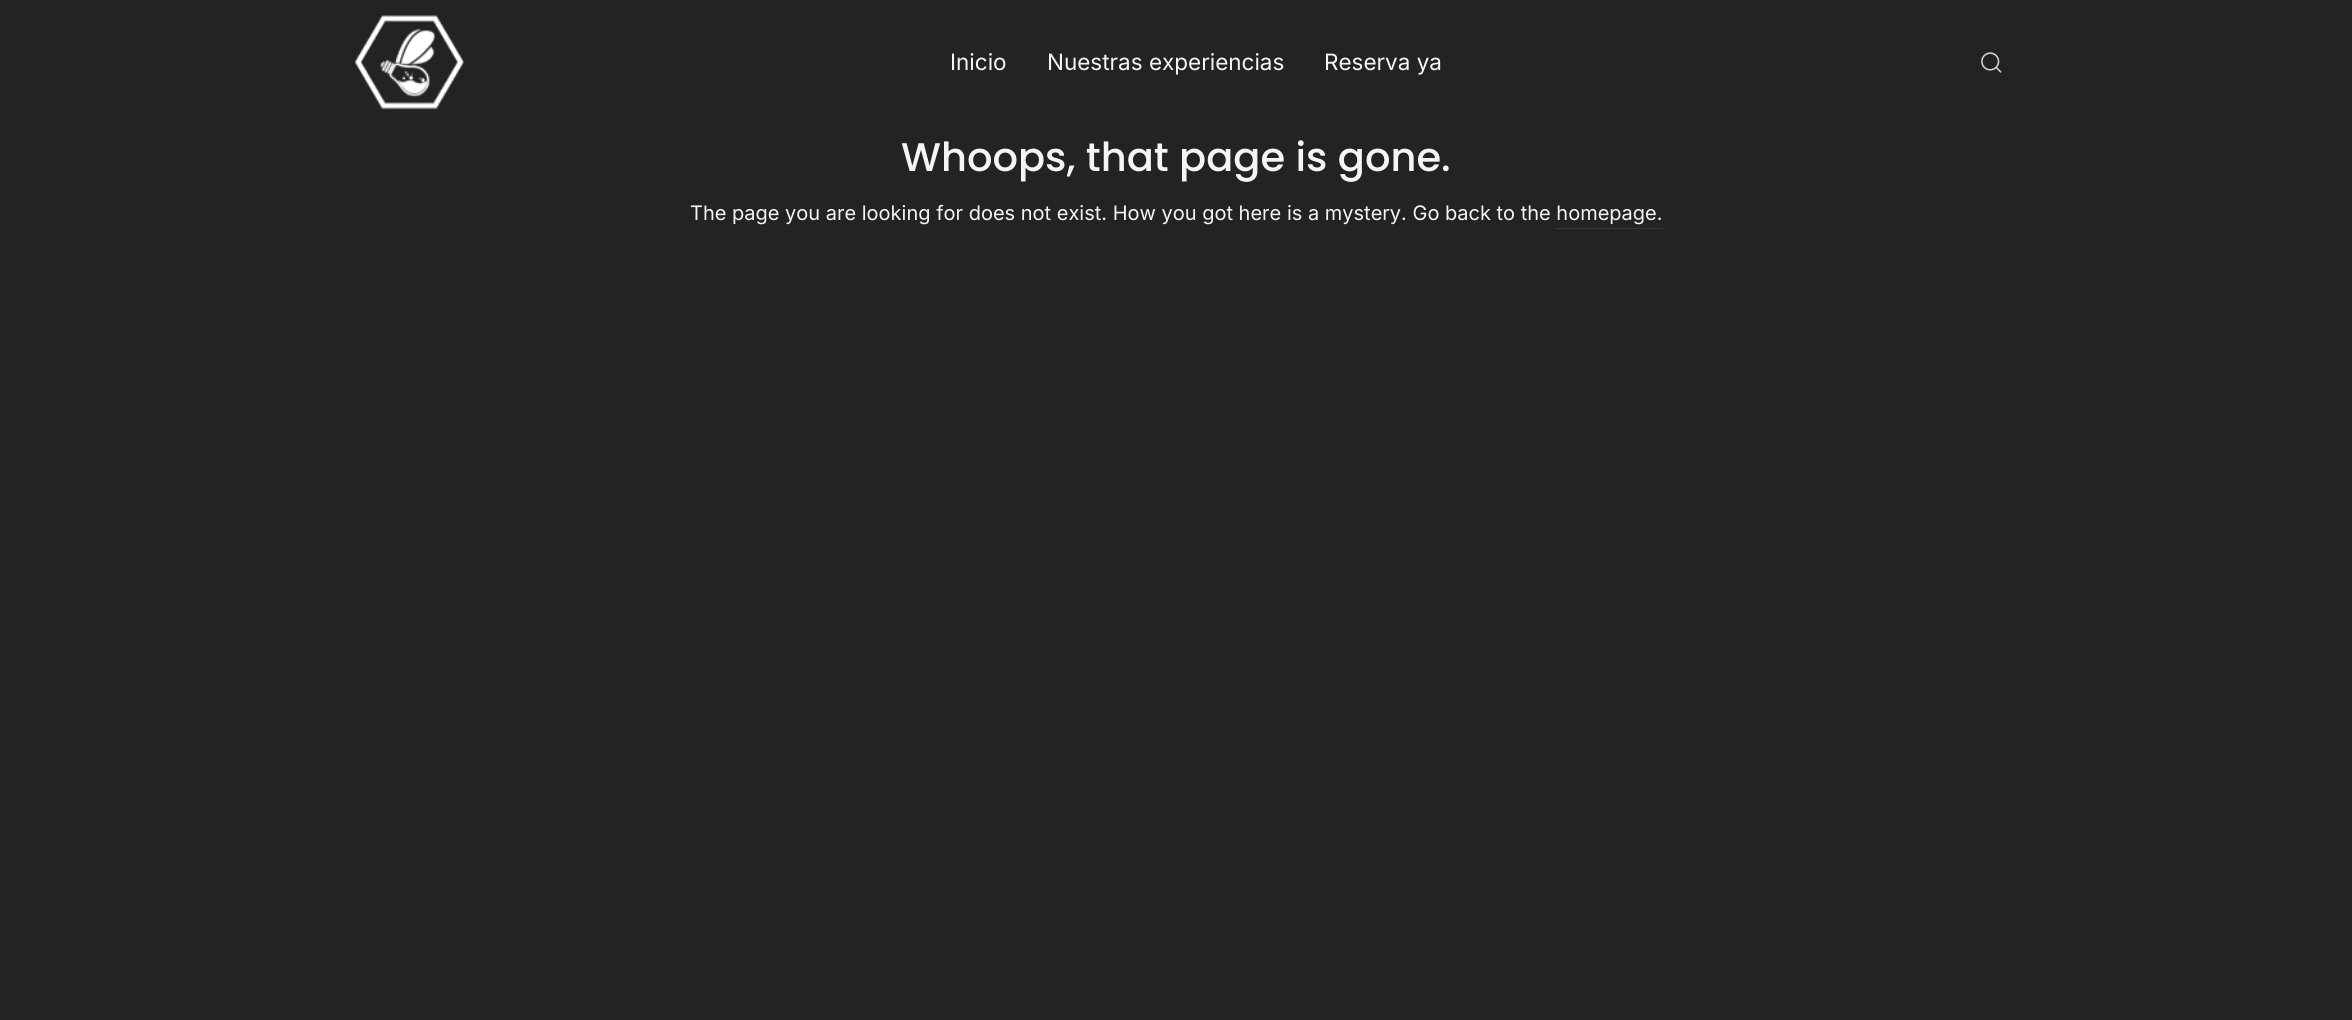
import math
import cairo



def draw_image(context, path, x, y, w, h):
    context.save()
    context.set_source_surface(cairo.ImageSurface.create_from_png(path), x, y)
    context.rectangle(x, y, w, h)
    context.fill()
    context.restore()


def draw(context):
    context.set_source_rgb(36 / 255, 35 / 255, 35 / 255)
    context.paint()
    draw_image(context, "images/1.png", 355, 15, 109, 95)
    draw_image(context, "images/2.png", 1981, 52, 21, 21)
    context.set_source_rgb(56 / 255, 56 / 255, 56 / 255)
    context.rectangle(1556, 228, 107, 1)
    context.fill()
    context.select_font_face("Inter")
    context.set_font_size(22.5)
    context.set_source_rgb(245 / 255, 245 / 255, 245 / 255)
    context.move_to(950, 70)
    context.show_text("Inicio")
    context.move_to(1047, 70)
    context.show_text("Nuestras experiencias")
    context.move_to(1324, 70)
    context.show_text("Reserva ya")
    context.select_font_face("Poppins Medium")
    context.set_font_size(40)
    context.move_to(901, 171)
    context.show_text("Whoops, that page is gone.")
    context.select_font_face("Inter")
    context.set_font_size(20)
    context.move_to(690, 220)
    context.show_text("The page you are looking for does not exist. How you got here is a mystery. Go back to the homepage.")


surface = cairo.ImageSurface(cairo.Format.RGB24, 2352, 1020)
context = cairo.Context(surface)
options = cairo.FontOptions()
options.set_hint_metrics(cairo.HintMetrics.OFF)
options.set_hint_style(cairo.HintStyle.NONE)
context.set_font_options(options)
context.set_miter_limit(4)
draw(context)
surface.write_to_png("out.png")
